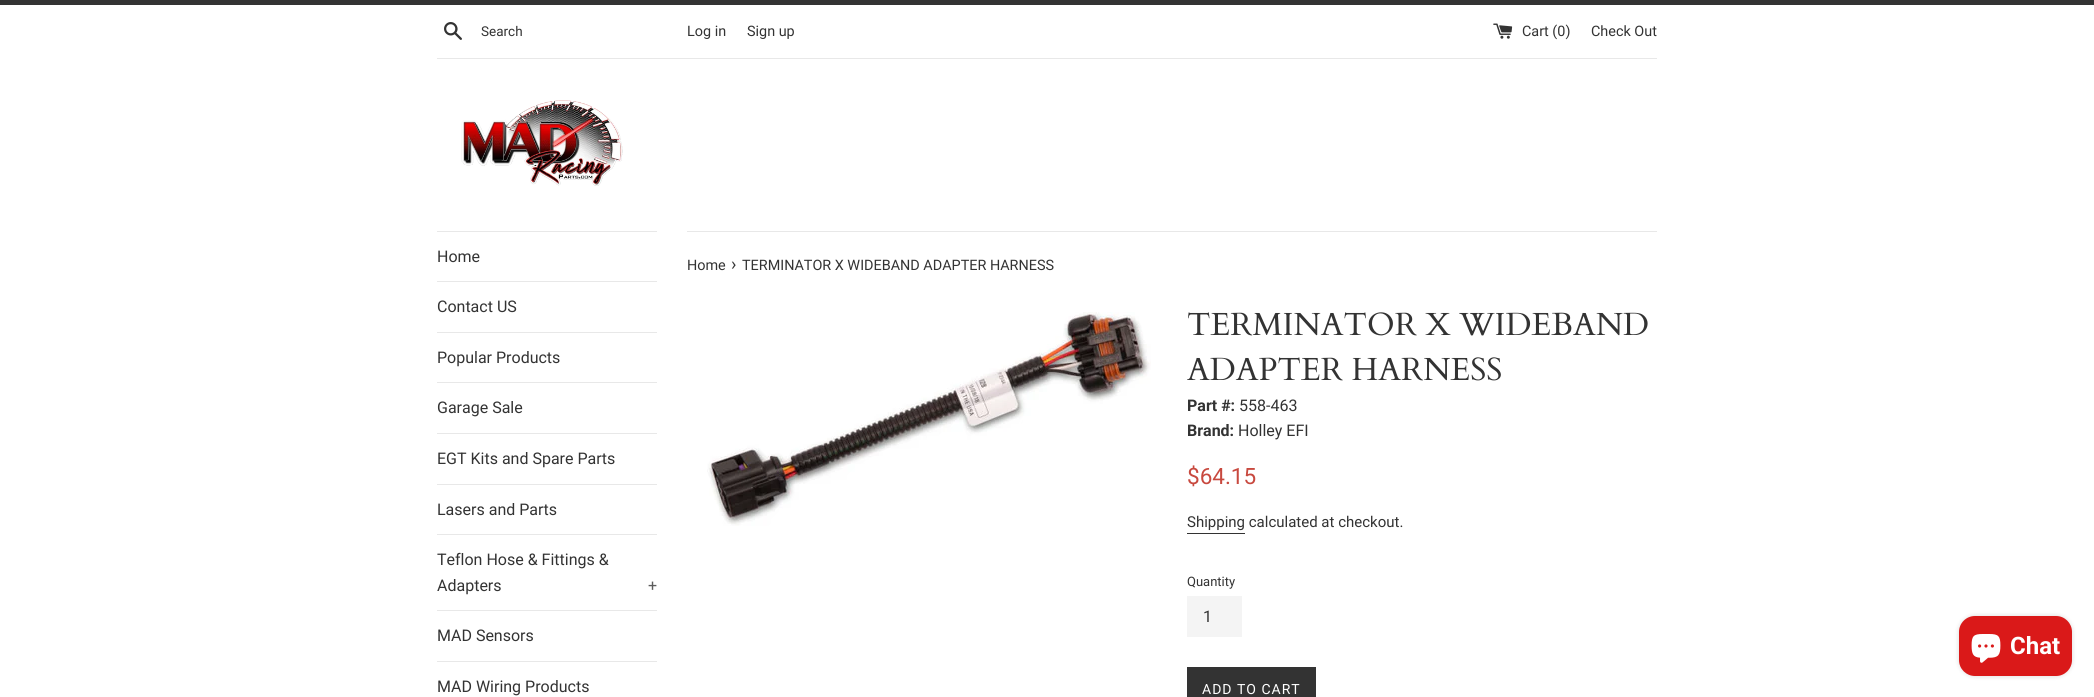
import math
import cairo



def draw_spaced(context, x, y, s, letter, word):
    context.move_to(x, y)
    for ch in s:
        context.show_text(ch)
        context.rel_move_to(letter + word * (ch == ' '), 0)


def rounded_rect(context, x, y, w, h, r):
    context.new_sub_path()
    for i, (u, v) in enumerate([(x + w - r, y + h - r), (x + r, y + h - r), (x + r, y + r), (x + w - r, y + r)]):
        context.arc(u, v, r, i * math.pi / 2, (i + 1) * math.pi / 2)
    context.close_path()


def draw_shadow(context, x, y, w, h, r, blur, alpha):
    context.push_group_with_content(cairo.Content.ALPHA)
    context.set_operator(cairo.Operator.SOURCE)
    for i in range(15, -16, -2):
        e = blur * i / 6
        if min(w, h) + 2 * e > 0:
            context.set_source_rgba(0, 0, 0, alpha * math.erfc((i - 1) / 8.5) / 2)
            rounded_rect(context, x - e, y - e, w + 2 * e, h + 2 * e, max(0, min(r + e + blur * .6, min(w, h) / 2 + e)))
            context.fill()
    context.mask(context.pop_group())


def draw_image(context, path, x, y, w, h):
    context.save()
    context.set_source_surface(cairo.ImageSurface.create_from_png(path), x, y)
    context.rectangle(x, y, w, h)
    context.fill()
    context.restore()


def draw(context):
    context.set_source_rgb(1, 1, 1)
    context.paint()
    context.set_source_rgb(51 / 255, 51 / 255, 51 / 255)
    context.rectangle(0, 0, 2094, 5)
    context.fill()
    draw_image(context, "images/1.png", 444, 22, 18, 18)
    draw_image(context, "images/2.png", 1493, 23, 20, 16)
    context.set_source_rgb(232 / 255, 232 / 255, 232 / 255)
    context.rectangle(437, 58, 1220, 1)
    context.fill()
    draw_image(context, "images/3.png", 461, 100, 162, 86)
    context.rectangle(437, 231, 220, 1)
    context.fill()
    context.rectangle(437, 281, 220, 1)
    context.fill()
    context.rectangle(437, 332, 220, 1)
    context.fill()
    context.rectangle(437, 382, 220, 1)
    context.fill()
    context.rectangle(437, 433, 220, 1)
    context.fill()
    context.rectangle(437, 484, 220, 1)
    context.fill()
    context.rectangle(437, 534, 220, 1)
    context.fill()
    context.rectangle(437, 610, 220, 1)
    context.fill()
    context.rectangle(437, 661, 220, 1)
    context.fill()
    context.rectangle(687, 231, 970, 1)
    context.fill()
    draw_image(context, "images/4.png", 707, 312, 444, 214)
    context.set_source_rgb(51 / 255, 51 / 255, 51 / 255)
    context.rectangle(1187, 533, 58, 1)
    context.fill()
    context.set_source_rgb(244 / 255, 244 / 255, 244 / 255)
    context.rectangle(1187, 596, 55, 41)
    context.fill()
    context.set_source_rgb(51 / 255, 51 / 255, 51 / 255)
    context.rectangle(1187, 667, 129, 30)
    context.fill()
    context.set_source_rgb(0, 0, 0)
    draw_shadow(context, 1959, 616, 113, 60, 16, 2.5, 0.15)
    context.set_source_rgb(218 / 255, 25 / 255, 25 / 255)
    rounded_rect(context, 1959, 616, 113, 60, 16)
    context.fill()
    draw_image(context, "images/5.png", 1971, 634, 30, 29)
    context.select_font_face("Roboto")
    context.set_font_size(13.5)
    context.set_source_rgb(51 / 255, 51 / 255, 51 / 255)
    context.move_to(481, 36)
    context.show_text("Search")
    context.set_font_size(14.4)
    context.move_to(687, 36)
    context.show_text("Log in")
    context.move_to(747, 36)
    context.show_text("Sign up")
    context.move_to(1522, 36)
    context.show_text("Cart (0)")
    context.move_to(1591, 36)
    context.show_text("Check Out")
    context.set_font_size(16)
    context.move_to(437, 262)
    context.show_text("Home")
    context.move_to(437, 312)
    context.show_text("Contact US")
    context.move_to(437, 363)
    context.show_text("Popular Products")
    context.move_to(437, 413)
    context.show_text("Garage Sale")
    context.move_to(437, 464)
    context.show_text("EGT Kits and Spare Parts")
    context.move_to(437, 515)
    context.show_text("Lasers and Parts")
    context.move_to(437, 565)
    context.show_text("Teflon Hose & Fittings &")
    context.move_to(437, 591)
    context.show_text("Adapters")
    context.set_source_rgb(92 / 255, 92 / 255, 92 / 255)
    context.move_to(648, 591)
    context.show_text("+")
    context.set_source_rgb(51 / 255, 51 / 255, 51 / 255)
    context.move_to(437, 641)
    context.show_text("MAD Sensors")
    context.move_to(437, 692)
    context.show_text("MAD Wiring Products")
    context.set_font_size(14.4)
    context.move_to(687, 270)
    context.show_text("Home")
    context.set_font_size(18)
    context.move_to(731, 270)
    context.show_text("›")
    context.set_font_size(14.4)
    context.move_to(742, 270)
    context.show_text("TERMINATOR X WIDEBAND ADAPTER HARNESS")
    context.select_font_face("Cardo")
    context.set_font_size(32)
    context.move_to(1187, 335)
    context.show_text("TERMINATOR X WIDEBAND")
    context.move_to(1187, 380)
    context.show_text("ADAPTER HARNESS")
    context.select_font_face("Roboto", cairo.FontSlant.NORMAL, cairo.FontWeight.BOLD)
    context.set_font_size(16)
    context.move_to(1187, 411)
    context.show_text("Part #:")
    context.select_font_face("Roboto")
    context.move_to(1239, 411)
    context.show_text("558-463")
    context.select_font_face("Roboto", cairo.FontSlant.NORMAL, cairo.FontWeight.BOLD)
    context.move_to(1187, 436)
    context.show_text("Brand:")
    context.select_font_face("Roboto")
    context.move_to(1238, 436)
    context.show_text("Holley EFI")
    context.set_font_size(22.5)
    context.set_source_rgb(200 / 255, 73 / 255, 63 / 255)
    context.move_to(1187, 484)
    context.show_text("$64.15")
    context.set_font_size(15)
    context.set_source_rgb(51 / 255, 51 / 255, 51 / 255)
    context.move_to(1187, 527)
    context.show_text("Shipping calculated at checkout.")
    context.set_font_size(13)
    context.move_to(1187, 586)
    context.show_text("Quantity")
    context.set_font_size(16)
    context.move_to(1203, 622)
    context.show_text("1")
    context.set_font_size(14)
    context.set_source_rgb(1, 1, 1)
    draw_spaced(context, 1202, 694, "ADD TO CART", 1, 0)
    context.select_font_face("Roboto", cairo.FontSlant.NORMAL, cairo.FontWeight.BOLD)
    context.set_font_size(24)
    context.move_to(2010, 654)
    context.show_text("Chat")


surface = cairo.ImageSurface(cairo.Format.RGB24, 2094, 697)
context = cairo.Context(surface)
options = cairo.FontOptions()
options.set_hint_metrics(cairo.HintMetrics.OFF)
options.set_hint_style(cairo.HintStyle.NONE)
context.set_font_options(options)
context.set_miter_limit(4)
draw(context)
surface.write_to_png("out.png")
